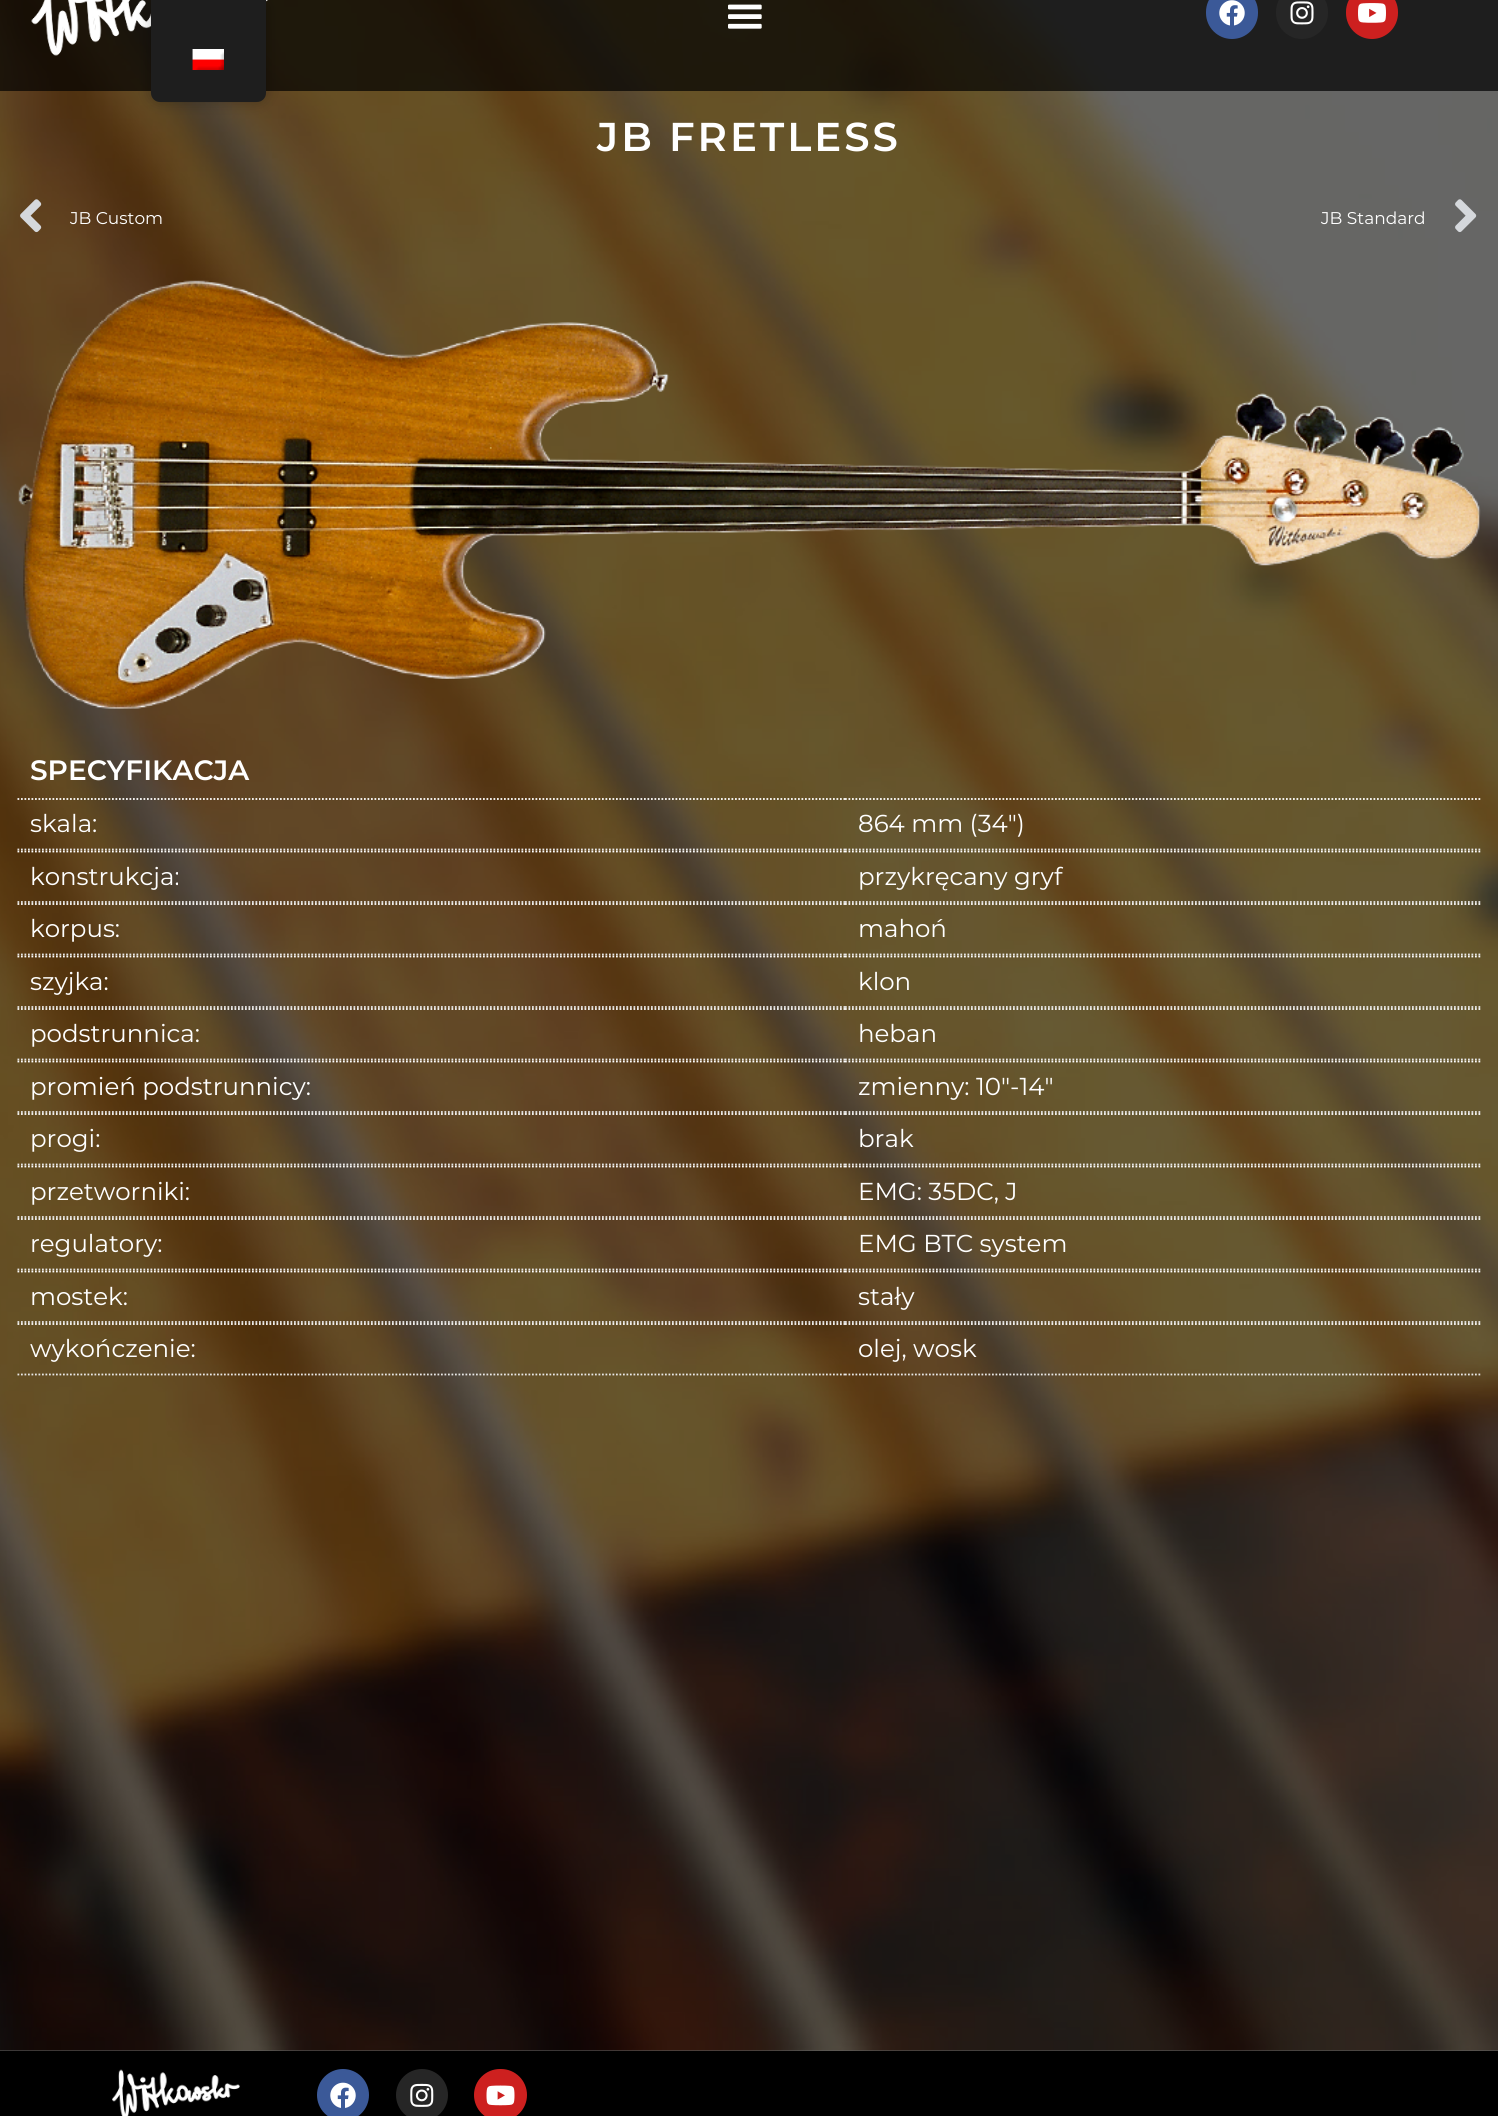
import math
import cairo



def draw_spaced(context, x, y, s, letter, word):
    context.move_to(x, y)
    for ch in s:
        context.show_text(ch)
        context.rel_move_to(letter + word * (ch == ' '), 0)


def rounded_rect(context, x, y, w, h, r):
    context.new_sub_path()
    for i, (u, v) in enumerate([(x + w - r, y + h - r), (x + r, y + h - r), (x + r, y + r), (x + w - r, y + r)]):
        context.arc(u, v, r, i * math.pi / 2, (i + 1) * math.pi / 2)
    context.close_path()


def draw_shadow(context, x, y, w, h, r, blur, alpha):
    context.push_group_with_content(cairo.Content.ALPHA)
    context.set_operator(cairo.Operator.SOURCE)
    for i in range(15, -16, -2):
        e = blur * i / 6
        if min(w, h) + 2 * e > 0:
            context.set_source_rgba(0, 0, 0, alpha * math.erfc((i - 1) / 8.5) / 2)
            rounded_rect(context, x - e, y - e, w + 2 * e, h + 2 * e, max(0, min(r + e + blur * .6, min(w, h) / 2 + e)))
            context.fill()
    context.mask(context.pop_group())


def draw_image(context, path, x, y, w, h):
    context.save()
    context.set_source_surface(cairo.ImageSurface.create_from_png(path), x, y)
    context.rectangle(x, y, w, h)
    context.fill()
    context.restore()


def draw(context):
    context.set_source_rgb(102 / 255, 102 / 255, 102 / 255)
    context.paint()
    draw_image(context, "images/7.png", 0, 0, 1498, 2051)
    context.set_source_rgba(0, 0, 0, 0.7)
    context.rectangle(0, 0, 1498, 91)
    context.fill()
    draw_image(context, "images/2.png", 31, 0, 237, 56)
    context.set_source_rgb(0, 0, 0)
    draw_shadow(context, 151, 0, 115, 102, 9, 7, 0.25)
    context.set_source_rgb(30 / 255, 30 / 255, 30 / 255)
    context.new_path()
    context.move_to(151, 0)
    context.line_to(266, 0)
    context.line_to(266, 93)
    context.curve_to(266, 98, 262, 102, 257, 102)
    context.line_to(160, 102)
    context.curve_to(155, 102, 151, 98, 151, 93)
    context.close_path()
    context.fill()
    draw_image(context, "images/1.png", 192, 49, 32, 21)
    draw_image(context, "images/3.png", 728, 4, 34, 25)
    context.set_source_rgb(59 / 255, 89 / 255, 152 / 255)
    rounded_rect(context, 1206, -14, 52, 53, 26)
    context.fill()
    draw_image(context, "images/4.png", 1219, 0, 26, 26)
    context.set_source_rgb(38 / 255, 38 / 255, 38 / 255)
    rounded_rect(context, 1276, -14, 52, 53, 26)
    context.fill()
    draw_image(context, "images/5.png", 1290, 1, 24, 24)
    context.set_source_rgb(205 / 255, 32 / 255, 31 / 255)
    rounded_rect(context, 1346, -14, 52, 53, 26)
    context.fill()
    draw_image(context, "images/6.png", 1358, 3, 28, 20)
    draw_image(context, "images/8.png", 20, 199, 22, 34)
    draw_image(context, "images/9.png", 1455, 199, 22, 34)
    draw_image(context, "images/10.png", 18, 280, 1463, 429)
    context.new_path()
    context.move_to(17.5, 799)
    context.line_to(845, 799)
    context.set_source_rgb(1, 1, 1)
    context.set_line_width(1.8)
    context.set_dash([1.75, 1.75])
    context.stroke()
    context.new_path()
    context.move_to(17.5, 849.5)
    context.line_to(845, 849.5)
    context.set_source_rgb(233 / 255, 233 / 255, 233 / 255)
    context.stroke()
    context.new_path()
    context.move_to(845, 799)
    context.line_to(1480.5, 799)
    context.set_source_rgb(1, 1, 1)
    context.stroke()
    context.new_path()
    context.move_to(845, 849.5)
    context.line_to(1480.5, 849.5)
    context.set_source_rgb(233 / 255, 233 / 255, 233 / 255)
    context.stroke()
    context.new_path()
    context.move_to(17.5, 851.5)
    context.line_to(845, 851.5)
    context.set_source_rgb(1, 1, 1)
    context.stroke()
    context.new_path()
    context.move_to(17.5, 902)
    context.line_to(845, 902)
    context.set_source_rgb(233 / 255, 233 / 255, 233 / 255)
    context.stroke()
    context.new_path()
    context.move_to(845, 851.5)
    context.line_to(1480.5, 851.5)
    context.set_source_rgb(1, 1, 1)
    context.stroke()
    context.new_path()
    context.move_to(845, 902)
    context.line_to(1480.5, 902)
    context.set_source_rgb(233 / 255, 233 / 255, 233 / 255)
    context.stroke()
    context.new_path()
    context.move_to(17.5, 904)
    context.line_to(845, 904)
    context.set_source_rgb(1, 1, 1)
    context.stroke()
    context.new_path()
    context.move_to(17.5, 954.5)
    context.line_to(845, 954.5)
    context.set_source_rgb(233 / 255, 233 / 255, 233 / 255)
    context.stroke()
    context.new_path()
    context.move_to(845, 904)
    context.line_to(1480.5, 904)
    context.set_source_rgb(1, 1, 1)
    context.stroke()
    context.new_path()
    context.move_to(845, 954.5)
    context.line_to(1480.5, 954.5)
    context.set_source_rgb(233 / 255, 233 / 255, 233 / 255)
    context.stroke()
    context.new_path()
    context.move_to(17.5, 956.5)
    context.line_to(845, 956.5)
    context.set_source_rgb(1, 1, 1)
    context.stroke()
    context.new_path()
    context.move_to(17.5, 1007)
    context.line_to(845, 1007)
    context.set_source_rgb(233 / 255, 233 / 255, 233 / 255)
    context.stroke()
    context.new_path()
    context.move_to(845, 956.5)
    context.line_to(1480.5, 956.5)
    context.set_source_rgb(1, 1, 1)
    context.stroke()
    context.new_path()
    context.move_to(845, 1007)
    context.line_to(1480.5, 1007)
    context.set_source_rgb(233 / 255, 233 / 255, 233 / 255)
    context.stroke()
    context.new_path()
    context.move_to(17.5, 1009)
    context.line_to(845, 1009)
    context.set_source_rgb(1, 1, 1)
    context.stroke()
    context.new_path()
    context.move_to(17.5, 1059.5)
    context.line_to(845, 1059.5)
    context.set_source_rgb(233 / 255, 233 / 255, 233 / 255)
    context.stroke()
    context.new_path()
    context.move_to(845, 1009)
    context.line_to(1480.5, 1009)
    context.set_source_rgb(1, 1, 1)
    context.stroke()
    context.new_path()
    context.move_to(845, 1059.5)
    context.line_to(1480.5, 1059.5)
    context.set_source_rgb(233 / 255, 233 / 255, 233 / 255)
    context.stroke()
    context.new_path()
    context.move_to(17.5, 1061.5)
    context.line_to(845, 1061.5)
    context.set_source_rgb(1, 1, 1)
    context.stroke()
    context.new_path()
    context.move_to(17.5, 1112)
    context.line_to(845, 1112)
    context.set_source_rgb(233 / 255, 233 / 255, 233 / 255)
    context.stroke()
    context.new_path()
    context.move_to(845, 1061.5)
    context.line_to(1480.5, 1061.5)
    context.set_source_rgb(1, 1, 1)
    context.stroke()
    context.new_path()
    context.move_to(845, 1112)
    context.line_to(1480.5, 1112)
    context.set_source_rgb(233 / 255, 233 / 255, 233 / 255)
    context.stroke()
    context.new_path()
    context.move_to(17.5, 1114)
    context.line_to(845, 1114)
    context.set_source_rgb(1, 1, 1)
    context.stroke()
    context.new_path()
    context.move_to(17.5, 1164.5)
    context.line_to(845, 1164.5)
    context.set_source_rgb(233 / 255, 233 / 255, 233 / 255)
    context.stroke()
    context.new_path()
    context.move_to(845, 1114)
    context.line_to(1480.5, 1114)
    context.set_source_rgb(1, 1, 1)
    context.stroke()
    context.new_path()
    context.move_to(845, 1164.5)
    context.line_to(1480.5, 1164.5)
    context.set_source_rgb(233 / 255, 233 / 255, 233 / 255)
    context.stroke()
    context.new_path()
    context.move_to(17.5, 1166.5)
    context.line_to(845, 1166.5)
    context.set_source_rgb(1, 1, 1)
    context.stroke()
    context.new_path()
    context.move_to(17.5, 1217)
    context.line_to(845, 1217)
    context.set_source_rgb(233 / 255, 233 / 255, 233 / 255)
    context.stroke()
    context.new_path()
    context.move_to(845, 1166.5)
    context.line_to(1480.5, 1166.5)
    context.set_source_rgb(1, 1, 1)
    context.stroke()
    context.new_path()
    context.move_to(845, 1217)
    context.line_to(1480.5, 1217)
    context.set_source_rgb(233 / 255, 233 / 255, 233 / 255)
    context.stroke()
    context.new_path()
    context.move_to(17.5, 1219)
    context.line_to(845, 1219)
    context.set_source_rgb(1, 1, 1)
    context.stroke()
    context.new_path()
    context.move_to(17.5, 1269.5)
    context.line_to(845, 1269.5)
    context.set_source_rgb(233 / 255, 233 / 255, 233 / 255)
    context.stroke()
    context.new_path()
    context.move_to(845, 1219)
    context.line_to(1480.5, 1219)
    context.set_source_rgb(1, 1, 1)
    context.stroke()
    context.new_path()
    context.move_to(845, 1269.5)
    context.line_to(1480.5, 1269.5)
    context.set_source_rgb(233 / 255, 233 / 255, 233 / 255)
    context.stroke()
    context.new_path()
    context.move_to(17.5, 1271.5)
    context.line_to(845, 1271.5)
    context.set_source_rgb(1, 1, 1)
    context.stroke()
    context.new_path()
    context.move_to(17.5, 1322)
    context.line_to(845, 1322)
    context.set_source_rgb(233 / 255, 233 / 255, 233 / 255)
    context.stroke()
    context.new_path()
    context.move_to(845, 1271.5)
    context.line_to(1480.5, 1271.5)
    context.set_source_rgb(1, 1, 1)
    context.stroke()
    context.new_path()
    context.move_to(845, 1322)
    context.line_to(1480.5, 1322)
    context.set_source_rgb(233 / 255, 233 / 255, 233 / 255)
    context.stroke()
    context.new_path()
    context.move_to(17.5, 1324)
    context.line_to(845, 1324)
    context.set_source_rgb(1, 1, 1)
    context.stroke()
    context.new_path()
    context.move_to(17.5, 1374.5)
    context.line_to(845, 1374.5)
    context.set_source_rgb(233 / 255, 233 / 255, 233 / 255)
    context.stroke()
    context.new_path()
    context.move_to(845, 1324)
    context.line_to(1480.5, 1324)
    context.set_source_rgb(1, 1, 1)
    context.stroke()
    context.new_path()
    context.move_to(845, 1374.5)
    context.line_to(1480.5, 1374.5)
    context.set_source_rgb(233 / 255, 233 / 255, 233 / 255)
    context.stroke()
    context.set_source_rgb(0, 0, 0)
    context.rectangle(0, 2051, 1498, 65)
    context.fill()
    draw_image(context, "images/11.png", 112, 2069, 128, 47)
    context.set_source_rgb(59 / 255, 89 / 255, 152 / 255)
    context.arc(343, 2095, 26, 0, 2 * math.pi)
    context.fill()
    draw_image(context, "images/12.png", 330, 2082, 26, 26)
    context.set_source_rgb(38 / 255, 38 / 255, 38 / 255)
    context.arc(422, 2095, 26, 0, 2 * math.pi)
    context.fill()
    draw_image(context, "images/13.png", 410, 2083, 24, 24)
    context.set_source_rgb(205 / 255, 32 / 255, 31 / 255)
    rounded_rect(context, 474, 2069, 53, 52, 26)
    context.fill()
    draw_image(context, "images/14.png", 486, 2085, 29, 21)
    context.select_font_face("Montserrat SemiBold")
    context.set_font_size(40.25)
    context.set_source_rgb(1, 1, 1)
    draw_spaced(context, 597, 151, "JB FRETLESS", 3, 0)
    context.select_font_face("Montserrat")
    context.set_font_size(17)
    context.move_to(70, 224)
    context.show_text("JB Custom")
    context.move_to(1321, 224)
    context.show_text("JB Standard")
    context.select_font_face("Montserrat SemiBold")
    context.set_font_size(28)
    context.move_to(30, 780)
    context.show_text("SPECYFIKACJA")
    context.select_font_face("Montserrat")
    context.set_font_size(24.5)
    context.move_to(30, 832)
    context.show_text("skala:")
    context.move_to(858, 832)
    context.show_text("864 mm (34″)")
    context.move_to(30, 885)
    context.show_text("konstrukcja:")
    context.move_to(858, 885)
    context.show_text("przykręcany gryf")
    context.move_to(30, 937)
    context.show_text("korpus:")
    context.move_to(858, 937)
    context.show_text("mahoń")
    context.move_to(30, 990)
    context.show_text("szyjka:")
    context.move_to(858, 990)
    context.show_text("klon")
    context.move_to(30, 1042)
    context.show_text("podstrunnica:")
    context.move_to(858, 1042)
    context.show_text("heban")
    context.move_to(30, 1095)
    context.show_text("promień podstrunnicy:")
    context.move_to(858, 1095)
    context.show_text("zmienny: 10″-14″")
    context.move_to(30, 1147)
    context.show_text("progi:")
    context.move_to(858, 1147)
    context.show_text("brak")
    context.move_to(30, 1200)
    context.show_text("przetworniki:")
    context.move_to(858, 1200)
    context.show_text("EMG: 35DC, J")
    context.move_to(30, 1252)
    context.show_text("regulatory:")
    context.move_to(858, 1252)
    context.show_text("EMG BTC system")
    context.move_to(30, 1305)
    context.show_text("mostek:")
    context.move_to(858, 1305)
    context.show_text("stały")
    context.move_to(30, 1357)
    context.show_text("wykończenie:")
    context.move_to(858, 1357)
    context.show_text("olej, wosk")


surface = cairo.ImageSurface(cairo.Format.RGB24, 1498, 2116)
context = cairo.Context(surface)
options = cairo.FontOptions()
options.set_hint_metrics(cairo.HintMetrics.OFF)
options.set_hint_style(cairo.HintStyle.NONE)
context.set_font_options(options)
context.set_miter_limit(4)
draw(context)
surface.write_to_png("out.png")
